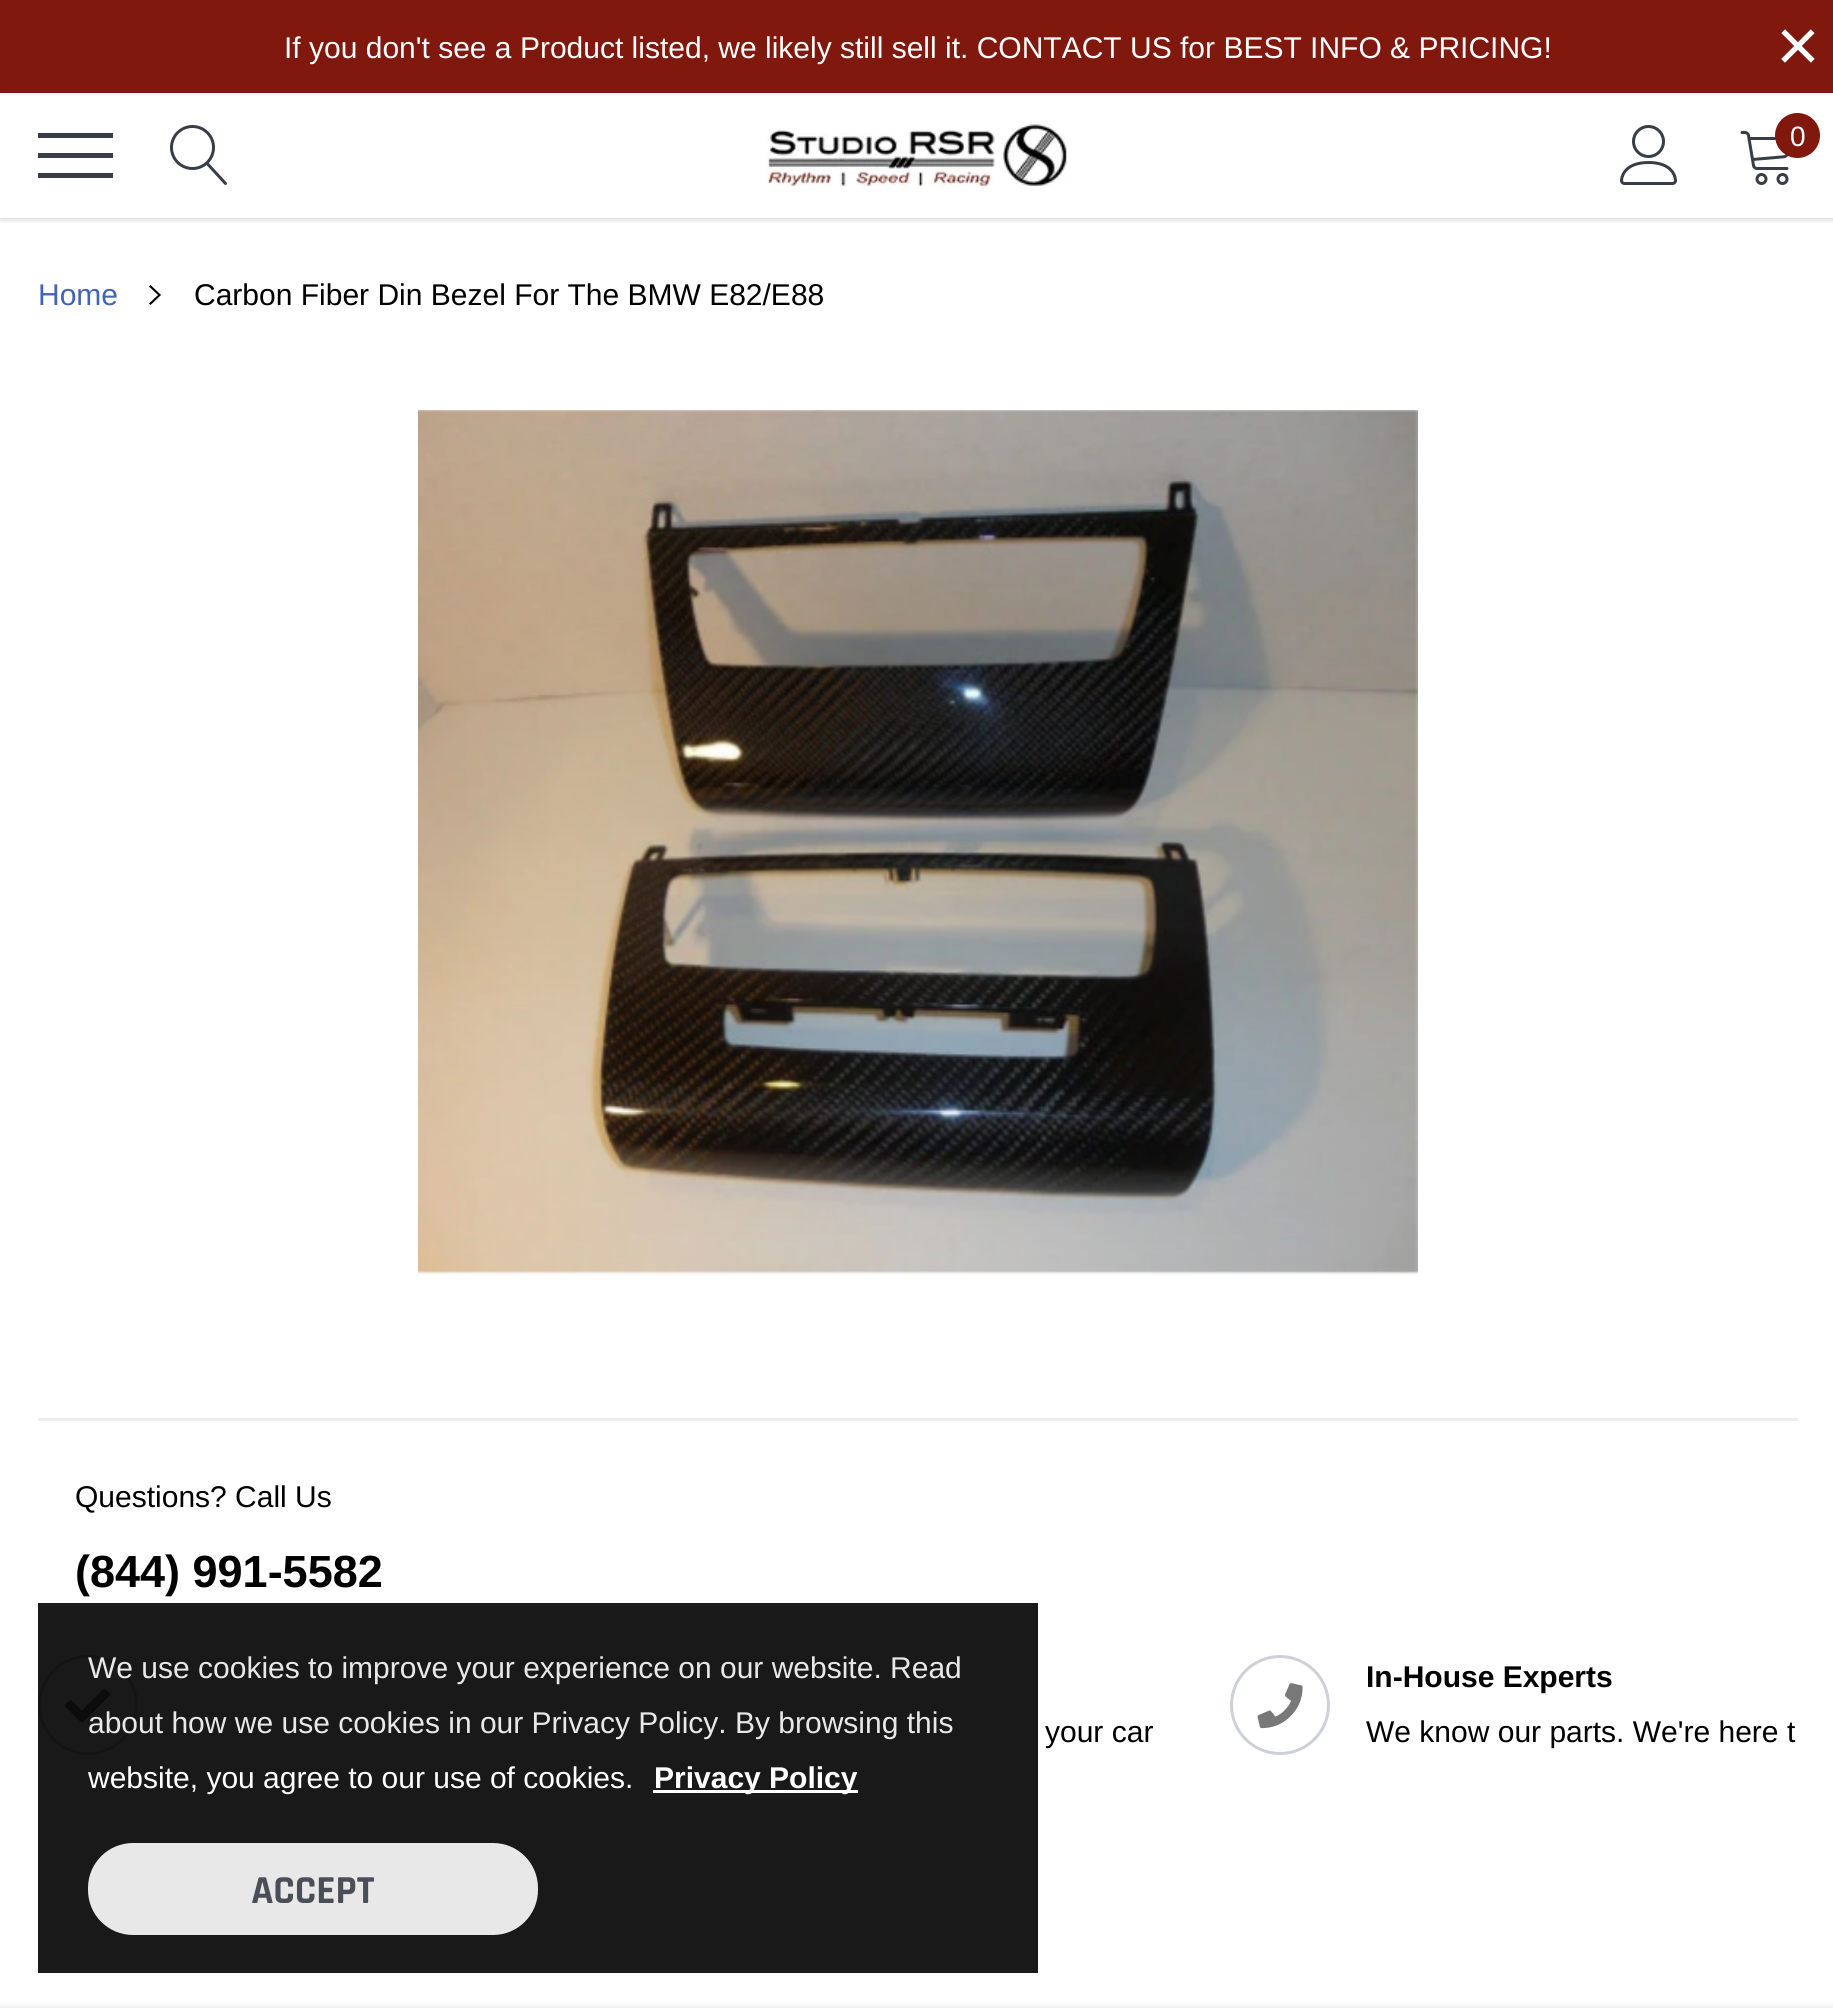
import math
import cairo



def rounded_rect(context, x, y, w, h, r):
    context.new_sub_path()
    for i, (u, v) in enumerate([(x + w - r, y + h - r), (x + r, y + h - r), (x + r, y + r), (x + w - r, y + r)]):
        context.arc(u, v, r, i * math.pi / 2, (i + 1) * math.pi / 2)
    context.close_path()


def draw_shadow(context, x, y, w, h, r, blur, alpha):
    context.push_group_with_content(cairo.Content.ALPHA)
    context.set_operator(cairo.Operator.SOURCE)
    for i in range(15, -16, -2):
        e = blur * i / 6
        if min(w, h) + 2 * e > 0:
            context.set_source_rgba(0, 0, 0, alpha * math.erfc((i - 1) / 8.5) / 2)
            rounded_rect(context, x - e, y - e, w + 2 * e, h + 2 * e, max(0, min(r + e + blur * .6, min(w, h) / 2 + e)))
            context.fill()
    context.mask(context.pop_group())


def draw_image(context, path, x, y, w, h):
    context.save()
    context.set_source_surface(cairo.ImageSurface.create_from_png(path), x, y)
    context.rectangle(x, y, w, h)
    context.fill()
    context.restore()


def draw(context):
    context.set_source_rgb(1, 1, 1)
    context.paint()
    context.set_source_rgb(128 / 255, 24 / 255, 14 / 255)
    context.rectangle(0, 0, 1833, 93)
    context.fill()
    context.set_source_rgb(0, 0, 0)
    draw_shadow(context, 0, 95, 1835, 125, 0, 2.5, 0.15)
    context.set_source_rgb(1, 1, 1)
    context.rectangle(0, 93, 1833, 125)
    context.fill()
    context.set_source_rgb(56 / 255, 62 / 255, 71 / 255)
    context.rectangle(38, 153, 75, 5)
    context.fill()
    context.rectangle(38, 133, 75, 5)
    context.fill()
    context.rectangle(38, 173, 75, 5)
    context.fill()
    draw_image(context, "images/1.png", 170, 125, 57, 60)
    draw_image(context, "images/2.png", 767, 122, 301, 70)
    draw_image(context, "images/3.png", 1620, 125, 57, 60)
    draw_image(context, "images/4.png", 1740, 131, 49, 54)
    context.set_source_rgb(128 / 255, 24 / 255, 14 / 255)
    context.arc(1797.5, 135.5, 22.5, 0, 2 * math.pi)
    context.fill()
    context.set_source_rgb(0, 0, 0)
    context.new_path()
    context.move_to(150.5, 285)
    context.line_to(149, 286.5)
    context.line_to(158, 295)
    context.line_to(149, 303.5)
    context.line_to(150.5, 305)
    context.line_to(161, 295)
    context.close_path()
    context.fill()
    draw_image(context, "images/5.png", 418, 410, 1000, 865)
    context.set_source_rgb(238 / 255, 238 / 255, 238 / 255)
    context.rectangle(38, 1418, 1760, 3)
    context.fill()
    context.arc(88, 1705, 48.5, 0, 2 * math.pi)
    context.set_source_rgb(205 / 255, 208 / 255, 215 / 255)
    context.set_line_width(3)
    context.stroke()
    draw_image(context, "images/6.png", 65, 1688, 45, 35)
    context.arc(1280, 1705, 48.5, 0, 2 * math.pi)
    context.stroke()
    draw_image(context, "images/7.png", 1257, 1683, 46, 46)
    context.set_source_rgb(0, 0, 0)
    draw_shadow(context, 0, 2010, 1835, 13, 0, 5, 0.2)
    context.set_source_rgba(0, 0, 0, 0.9)
    context.rectangle(38, 1603, 1000, 370)
    context.fill()
    context.set_source_rgb(1, 1, 1)
    context.rectangle(653, 1790, 205, 3)
    context.fill()
    context.set_source_rgba(1, 1, 1, 0.9)
    rounded_rect(context, 88, 1843, 450, 92, 45)
    context.fill()
    context.select_font_face("Arimo")
    context.set_font_size(30)
    context.set_source_rgb(1, 1, 1)
    context.move_to(284, 58)
    context.show_text("If you don't see a Product listed, we likely still sell it. CONTACT US for BEST INFO & PRICING!")
    context.set_font_size(75)
    context.move_to(1776, 71)
    context.show_text("×")
    context.set_font_size(28)
    context.move_to(1790, 146)
    context.show_text("0")
    context.set_font_size(30)
    context.set_source_rgb(69 / 255, 99 / 255, 179 / 255)
    context.move_to(38, 305)
    context.show_text("Home")
    context.set_source_rgb(0, 0, 0)
    context.move_to(194, 305)
    context.show_text("Carbon Fiber Din Bezel For The BMW E82/E88")
    context.move_to(75, 1507)
    context.show_text("Questions? Call Us")
    context.select_font_face("Arimo", cairo.FontSlant.NORMAL, cairo.FontWeight.BOLD)
    context.set_font_size(45)
    context.move_to(75, 1587)
    context.show_text("(844) 991-5582")
    context.select_font_face("Arimo")
    context.set_font_size(30)
    context.move_to(1045, 1742)
    context.show_text("your car")
    context.select_font_face("Arimo", cairo.FontSlant.NORMAL, cairo.FontWeight.BOLD)
    context.move_to(1366, 1687)
    context.show_text("In-House Experts")
    context.select_font_face("Arimo")
    context.move_to(1366, 1742)
    context.show_text("We know our parts. We're here t")
    context.set_source_rgb(232 / 255, 232 / 255, 232 / 255)
    context.move_to(88, 1678)
    context.show_text("We use cookies to improve your experience on our website. Read")
    context.move_to(88, 1733)
    context.show_text("about how we use cookies in our Privacy Policy. By browsing this")
    context.set_source_rgb(1, 1, 1)
    context.move_to(88, 1788)
    context.show_text("website, you agree to our use of cookies.")
    context.select_font_face("Arimo", cairo.FontSlant.NORMAL, cairo.FontWeight.BOLD)
    context.move_to(654, 1788)
    context.show_text("Privacy Policy")
    context.select_font_face("Rajdhani", cairo.FontSlant.NORMAL, cairo.FontWeight.BOLD)
    context.set_font_size(40)
    context.set_source_rgb(74 / 255, 79 / 255, 87 / 255)
    context.move_to(251, 1903)
    context.show_text("ACCEPT")


surface = cairo.ImageSurface(cairo.Format.RGB24, 1833, 2008)
context = cairo.Context(surface)
options = cairo.FontOptions()
options.set_hint_metrics(cairo.HintMetrics.OFF)
options.set_hint_style(cairo.HintStyle.NONE)
context.set_font_options(options)
context.set_miter_limit(4)
draw(context)
surface.write_to_png("out.png")
